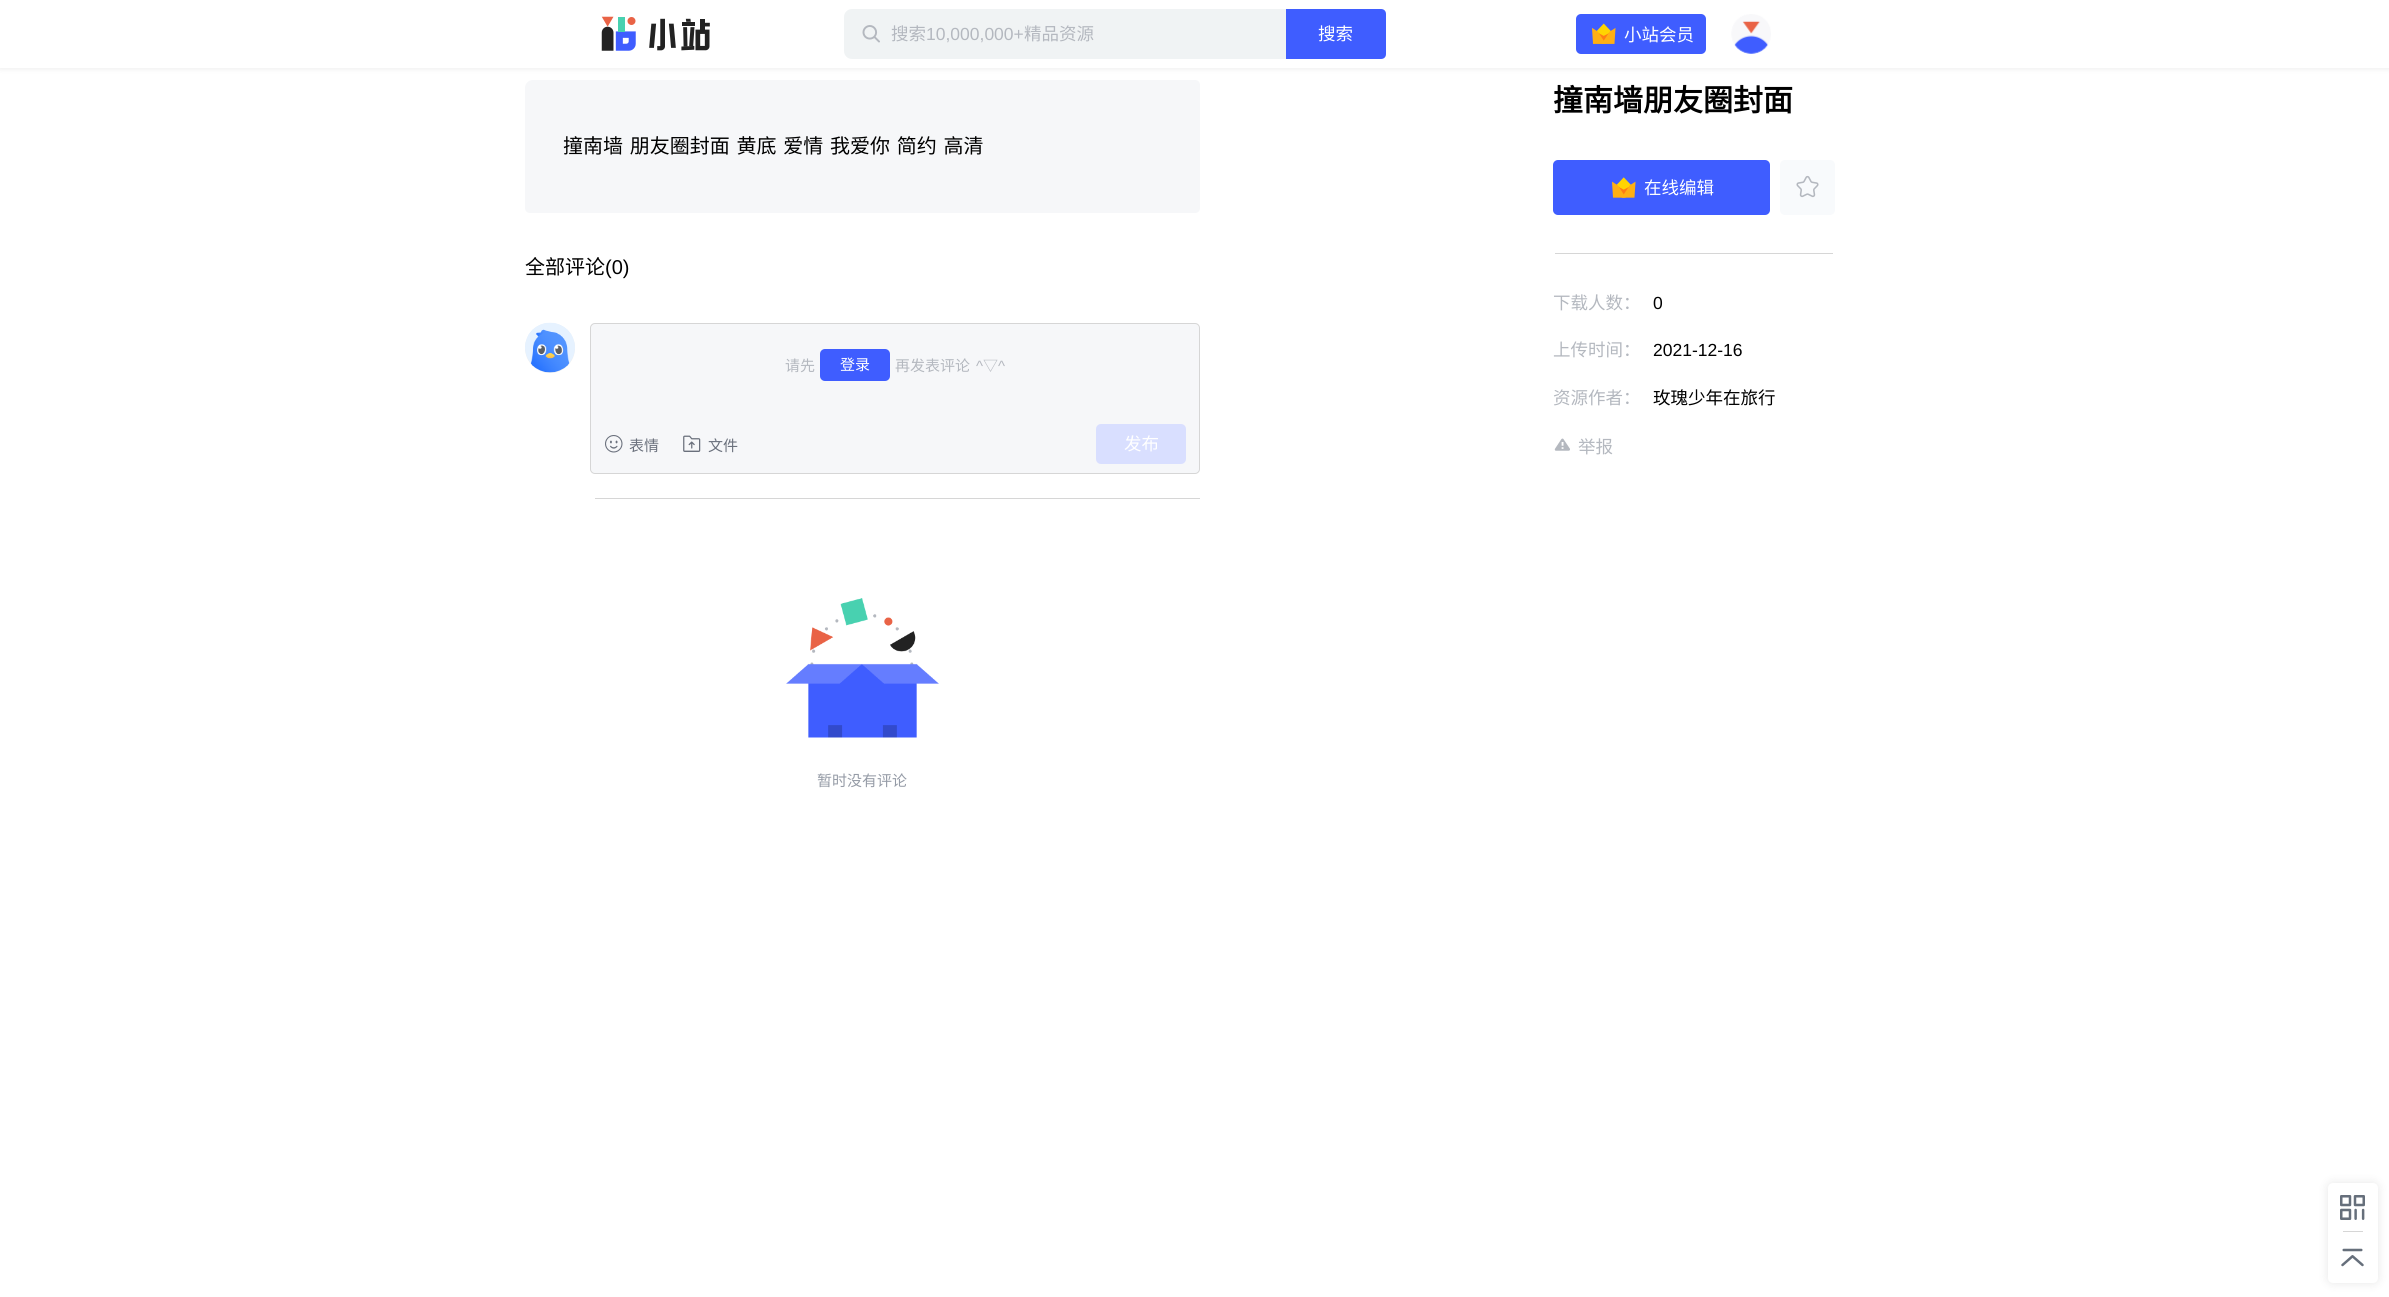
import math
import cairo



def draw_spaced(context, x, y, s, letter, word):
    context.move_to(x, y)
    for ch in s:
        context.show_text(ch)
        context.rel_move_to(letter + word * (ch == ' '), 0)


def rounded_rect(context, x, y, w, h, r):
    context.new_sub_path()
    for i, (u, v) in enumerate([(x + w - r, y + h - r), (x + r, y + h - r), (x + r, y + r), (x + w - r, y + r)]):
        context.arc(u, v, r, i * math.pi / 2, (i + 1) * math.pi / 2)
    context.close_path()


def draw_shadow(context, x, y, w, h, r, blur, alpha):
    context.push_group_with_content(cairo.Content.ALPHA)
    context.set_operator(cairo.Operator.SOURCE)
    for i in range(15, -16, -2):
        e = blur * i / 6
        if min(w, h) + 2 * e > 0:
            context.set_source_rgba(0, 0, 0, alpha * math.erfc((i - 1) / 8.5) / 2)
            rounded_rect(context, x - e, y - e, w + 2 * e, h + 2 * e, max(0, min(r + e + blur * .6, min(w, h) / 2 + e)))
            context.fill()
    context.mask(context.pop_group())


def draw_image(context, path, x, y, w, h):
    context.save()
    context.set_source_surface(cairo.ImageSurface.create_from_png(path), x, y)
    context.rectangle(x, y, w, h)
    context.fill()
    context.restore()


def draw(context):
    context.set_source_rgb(1, 1, 1)
    context.paint()
    context.set_source_rgb(0, 0, 0)
    draw_shadow(context, 0, 0, 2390, 68, 0, 3, 0.1)
    context.set_source_rgb(1, 1, 1)
    context.rectangle(0, 0, 2389, 68)
    context.fill()
    draw_image(context, "images/1.png", 601, 16, 109, 35)
    context.set_source_rgb(240 / 255, 243 / 255, 244 / 255)
    rounded_rect(context, 844, 9, 542, 50, 8)
    context.fill()
    draw_image(context, "images/2.png", 862, 25, 18, 18)
    context.set_source_rgb(63 / 255, 93 / 255, 1)
    context.new_path()
    context.move_to(1286, 9)
    context.line_to(1381, 9)
    context.curve_to(1384, 9, 1386, 11, 1386, 14)
    context.line_to(1386, 54)
    context.curve_to(1386, 57, 1384, 59, 1381, 59)
    context.line_to(1286, 59)
    context.close_path()
    context.fill()
    rounded_rect(context, 1576, 14, 130, 40, 5)
    context.fill()
    draw_image(context, "images/3.png", 1592, 23, 24, 21)
    draw_image(context, "images/4.png", 1731, 14, 40, 40)
    context.set_source_rgb(246 / 255, 247 / 255, 249 / 255)
    context.new_path()
    context.move_to(533, 80)
    context.line_to(1195, 80)
    context.curve_to(1198, 80, 1200, 82, 1200, 85)
    context.line_to(1200, 208)
    context.curve_to(1200, 211, 1198, 213, 1195, 213)
    context.line_to(530, 213)
    context.curve_to(527, 213, 525, 211, 525, 208)
    context.line_to(525, 88)
    context.curve_to(525, 83.5, 528.5, 80, 533, 80)
    context.close_path()
    context.fill()
    context.set_source_rgb(240 / 255, 240 / 255, 240 / 255)
    context.arc(550, 348, 25, 0, 2 * math.pi)
    context.fill()
    draw_image(context, "images/5.png", 525, 322, 50, 51)
    context.set_source_rgb(246 / 255, 247 / 255, 249 / 255)
    rounded_rect(context, 590.5, 323.5, 609, 150, 4.5)
    context.fill_preserve()
    context.set_source_rgb(214 / 255, 214 / 255, 214 / 255)
    context.set_line_width(1)
    context.stroke()
    context.set_source_rgb(63 / 255, 93 / 255, 1)
    rounded_rect(context, 820, 349, 70, 32, 5)
    context.fill()
    draw_image(context, "images/6.png", 605, 435, 18, 18)
    draw_image(context, "images/7.png", 683, 435, 18, 17)
    context.set_source_rgb(217 / 255, 223 / 255, 1)
    rounded_rect(context, 1096, 424, 90, 40, 5)
    context.fill()
    context.set_source_rgb(214 / 255, 214 / 255, 214 / 255)
    context.rectangle(595, 498, 605, 1)
    context.fill()
    draw_image(context, "images/8.png", 786, 598, 153, 140)
    context.set_source_rgb(63 / 255, 93 / 255, 1)
    rounded_rect(context, 1553, 160, 217, 55, 5)
    context.fill()
    draw_image(context, "images/9.png", 1612, 177, 24, 21)
    context.set_source_rgb(248 / 255, 250 / 255, 252 / 255)
    rounded_rect(context, 1780, 160, 55, 55, 5)
    context.fill()
    draw_image(context, "images/10.png", 1796, 175, 23, 23)
    context.set_source_rgb(214 / 255, 214 / 255, 214 / 255)
    context.rectangle(1555, 253, 278, 1)
    context.fill()
    draw_image(context, "images/11.png", 1554, 438, 16, 13)
    context.set_source_rgb(0, 0, 0)
    draw_shadow(context, 2328, 1183, 50, 100, 5, 5, 0.1)
    context.set_source_rgb(1, 1, 1)
    rounded_rect(context, 2328, 1183, 50, 100, 5)
    context.fill()
    draw_image(context, "images/12.png", 2340, 1195, 25, 25)
    context.set_source_rgb(214 / 255, 214 / 255, 214 / 255)
    context.rectangle(2343, 1231, 20, 1)
    context.fill()
    draw_image(context, "images/13.png", 2341, 1248, 23, 19)
    context.select_font_face("Noto Sans CJK SC")
    context.set_font_size(17.5)
    context.set_source_rgb(180 / 255, 184 / 255, 191 / 255)
    context.move_to(891, 40)
    context.show_text("搜索")
    context.select_font_face("Liberation Sans")
    context.move_to(926, 40)
    context.show_text("10,000,000+")
    context.select_font_face("Noto Sans CJK SC")
    context.move_to(1024, 40)
    context.show_text("精品资源")
    context.set_source_rgb(1, 1, 1)
    context.move_to(1318, 40)
    context.show_text("搜索")
    context.move_to(1624, 41)
    context.show_text("小站会员")
    context.set_font_size(20)
    context.set_source_rgb(0, 0, 0)
    draw_spaced(context, 563, 153, "撞南墙 朋友圈封面 黄底 爱情 我爱你 简约 高清", 0, 2.25)
    context.move_to(525, 274)
    context.show_text("全部评论")
    context.select_font_face("Liberation Sans")
    context.move_to(605, 274)
    context.show_text("(0)")
    context.select_font_face("Noto Sans CJK SC")
    context.set_font_size(15)
    context.set_source_rgb(180 / 255, 184 / 255, 191 / 255)
    context.move_to(785, 371)
    context.show_text("请先")
    context.set_source_rgb(1, 1, 1)
    context.move_to(840, 370)
    context.show_text("登录")
    context.set_source_rgb(180 / 255, 184 / 255, 191 / 255)
    context.move_to(895, 371)
    context.show_text("再发表评论")
    context.select_font_face("Liberation Sans")
    context.move_to(976, 371)
    context.show_text("^")
    context.select_font_face("Noto Sans CJK SC")
    context.move_to(983, 371)
    context.show_text("▽")
    context.select_font_face("Liberation Sans")
    context.move_to(998, 371)
    context.show_text("^")
    context.select_font_face("Noto Sans CJK SC")
    context.set_source_rgb(106 / 255, 112 / 255, 124 / 255)
    context.move_to(629, 451)
    context.show_text("表情")
    context.move_to(708, 451)
    context.show_text("文件")
    context.set_font_size(17.5)
    context.set_source_rgb(1, 1, 1)
    context.move_to(1124, 450)
    context.show_text("发布")
    context.set_font_size(15)
    context.set_source_rgb(149 / 255, 155 / 255, 166 / 255)
    context.move_to(817, 786)
    context.show_text("暂时没有评论")
    context.select_font_face("Noto Sans CJK SC", cairo.FontSlant.NORMAL, cairo.FontWeight.BOLD)
    context.set_font_size(30)
    context.set_source_rgb(0, 0, 0)
    context.move_to(1553, 111)
    context.show_text("撞南墙朋友圈封面")
    context.select_font_face("Noto Sans CJK SC")
    context.set_font_size(17.5)
    context.set_source_rgb(1, 1, 1)
    context.move_to(1644, 194)
    context.show_text("在线编辑")
    context.set_source_rgb(180 / 255, 184 / 255, 191 / 255)
    context.move_to(1553, 309)
    context.show_text("下载人数：")
    context.select_font_face("Liberation Sans")
    context.set_source_rgb(0, 0, 0)
    context.move_to(1653, 309)
    context.show_text("0")
    context.select_font_face("Noto Sans CJK SC")
    context.set_source_rgb(180 / 255, 184 / 255, 191 / 255)
    context.move_to(1553, 356)
    context.show_text("上传时间：")
    context.select_font_face("Liberation Sans")
    context.set_source_rgb(0, 0, 0)
    context.move_to(1653, 356)
    context.show_text("2021-12-16")
    context.select_font_face("Noto Sans CJK SC")
    context.set_source_rgb(180 / 255, 184 / 255, 191 / 255)
    context.move_to(1553, 404)
    context.show_text("资源作者：")
    context.set_source_rgb(0, 0, 0)
    context.move_to(1653, 404)
    context.show_text("玫瑰少年在旅行")
    context.set_source_rgb(180 / 255, 184 / 255, 191 / 255)
    context.move_to(1578, 453)
    context.show_text("举报")


surface = cairo.ImageSurface(cairo.Format.RGB24, 2389, 1297)
context = cairo.Context(surface)
options = cairo.FontOptions()
options.set_hint_metrics(cairo.HintMetrics.OFF)
options.set_hint_style(cairo.HintStyle.NONE)
context.set_font_options(options)
context.set_miter_limit(4)
draw(context)
surface.write_to_png("out.png")
